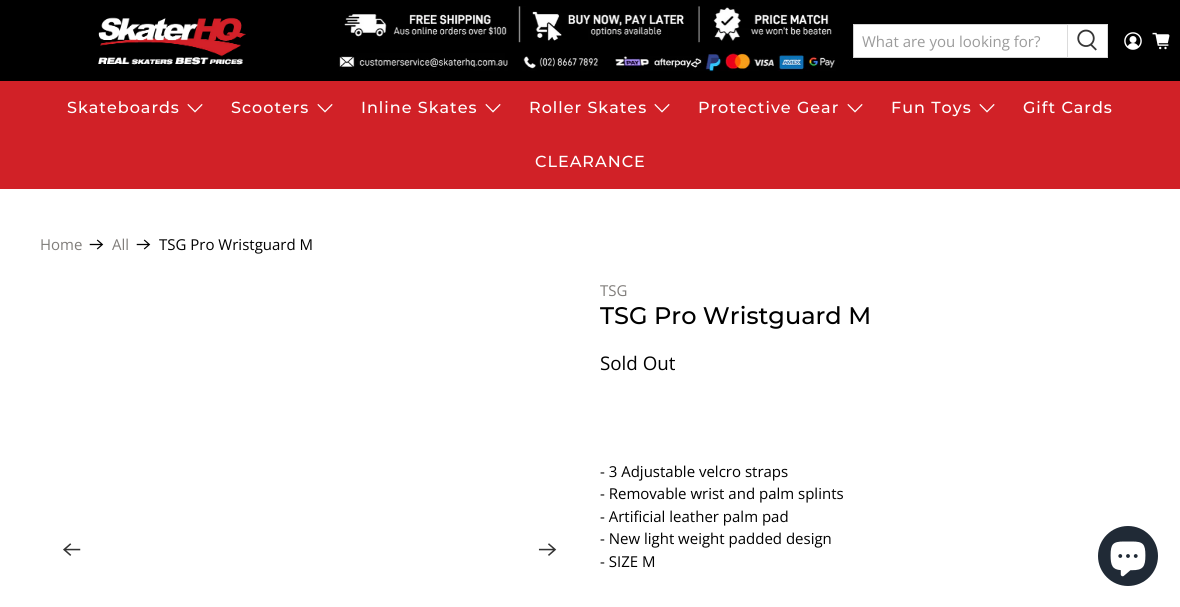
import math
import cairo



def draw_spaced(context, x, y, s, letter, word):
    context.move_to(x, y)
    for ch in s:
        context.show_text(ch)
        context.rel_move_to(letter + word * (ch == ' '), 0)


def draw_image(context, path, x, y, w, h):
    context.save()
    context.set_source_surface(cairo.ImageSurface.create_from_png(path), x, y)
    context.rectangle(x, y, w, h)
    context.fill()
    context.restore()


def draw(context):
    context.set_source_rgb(1, 1, 1)
    context.paint()
    context.set_source_rgb(0, 0, 0)
    context.rectangle(0, 0, 1180, 81)
    context.fill()
    draw_image(context, "images/1.png", 98, 17, 148, 48)
    draw_image(context, "images/2.png", 338, 6, 498, 66)
    context.set_source_rgb(1, 1, 1)
    context.rectangle(854, 25, 213, 32)
    context.fill()
    context.set_source_rgb(211 / 255, 211 / 255, 211 / 255)
    context.rectangle(853, 24, 215, 1)
    context.fill()
    context.rectangle(853, 57, 215, 1)
    context.fill()
    context.rectangle(853, 24, 1, 34)
    context.fill()
    context.set_source_rgb(1, 1, 1)
    context.rectangle(1067.5, 24.5, 40, 33)
    context.fill_preserve()
    context.set_source_rgb(219 / 255, 219 / 255, 219 / 255)
    context.set_line_width(1)
    context.stroke()
    draw_image(context, "images/3.png", 1077, 29, 20, 22)
    draw_image(context, "images/4.png", 1124, 32, 18, 18)
    draw_image(context, "images/5.png", 1152, 32, 18, 18)
    context.set_source_rgb(209 / 255, 33 / 255, 39 / 255)
    context.rectangle(0, 81, 1180, 108)
    context.fill()
    draw_image(context, "images/6.png", 187, 104, 16, 9)
    draw_image(context, "images/6.png", 317, 104, 16, 9)
    draw_image(context, "images/6.png", 485, 104, 16, 9)
    draw_image(context, "images/6.png", 654, 104, 16, 9)
    draw_image(context, "images/6.png", 847, 104, 16, 9)
    draw_image(context, "images/6.png", 979, 104, 16, 9)
    draw_image(context, "images/7.png", 89, 239, 15, 11)
    draw_image(context, "images/7.png", 136, 239, 15, 11)
    draw_image(context, "images/8.png", 63, 543, 18, 13)
    draw_image(context, "images/9.png", 538, 543, 19, 13)
    context.set_source_rgb(32 / 255, 42 / 255, 54 / 255)
    context.arc(1128, 556, 30, 0, 2 * math.pi)
    context.fill()
    draw_image(context, "images/10.png", 1110, 541, 36, 36)
    context.select_font_face("Open Sans")
    context.set_font_size(15)
    context.set_source_rgb(155 / 255, 155 / 255, 155 / 255)
    context.move_to(862, 47)
    context.show_text("What are you looking for?")
    context.select_font_face("Montserrat Medium")
    context.set_font_size(16)
    context.set_source_rgb(1, 1, 1)
    draw_spaced(context, 67, 113, "Skateboards", 1, 0)
    draw_spaced(context, 231, 113, "Scooters", 1, 0)
    draw_spaced(context, 361, 113, "Inline Skates", 1, 0)
    draw_spaced(context, 529, 113, "Roller Skates", 1, 0)
    draw_spaced(context, 698, 113, "Protective Gear", 1, 0)
    draw_spaced(context, 891, 113, "Fun Toys", 1, 0)
    draw_spaced(context, 1023, 113, "Gift Cards", 1, 0)
    draw_spaced(context, 535, 167, "CLEARANCE", 1, 0)
    context.select_font_face("Open Sans")
    context.set_font_size(15)
    context.set_source_rgb(128 / 255, 125 / 255, 122 / 255)
    context.move_to(40, 250)
    context.show_text("Home")
    context.move_to(112, 250)
    context.show_text("All")
    context.set_source_rgb(0, 0, 0)
    context.move_to(159, 250)
    context.show_text("TSG Pro Wristguard M")
    context.set_source_rgb(128 / 255, 125 / 255, 122 / 255)
    context.move_to(600, 296)
    context.show_text("TSG")
    context.select_font_face("Montserrat Medium")
    context.set_font_size(24)
    context.set_source_rgb(0, 0, 0)
    context.move_to(600, 324)
    context.show_text("TSG Pro Wristguard M")
    context.select_font_face("Open Sans")
    context.set_font_size(18.75)
    context.move_to(600, 370)
    context.show_text("Sold Out")
    context.set_font_size(15)
    context.move_to(600, 477)
    context.show_text("- 3 Adjustable velcro straps")
    context.move_to(600, 499)
    context.show_text("- Removable wrist and palm splints")
    context.move_to(600, 522)
    context.show_text("- Artificial leather palm pad")
    context.move_to(600, 544)
    context.show_text("- New light weight padded design")
    context.move_to(600, 567)
    context.show_text("- SIZE M")


surface = cairo.ImageSurface(cairo.Format.RGB24, 1180, 607)
context = cairo.Context(surface)
options = cairo.FontOptions()
options.set_hint_metrics(cairo.HintMetrics.OFF)
options.set_hint_style(cairo.HintStyle.NONE)
context.set_font_options(options)
context.set_miter_limit(4)
draw(context)
surface.write_to_png("out.png")
